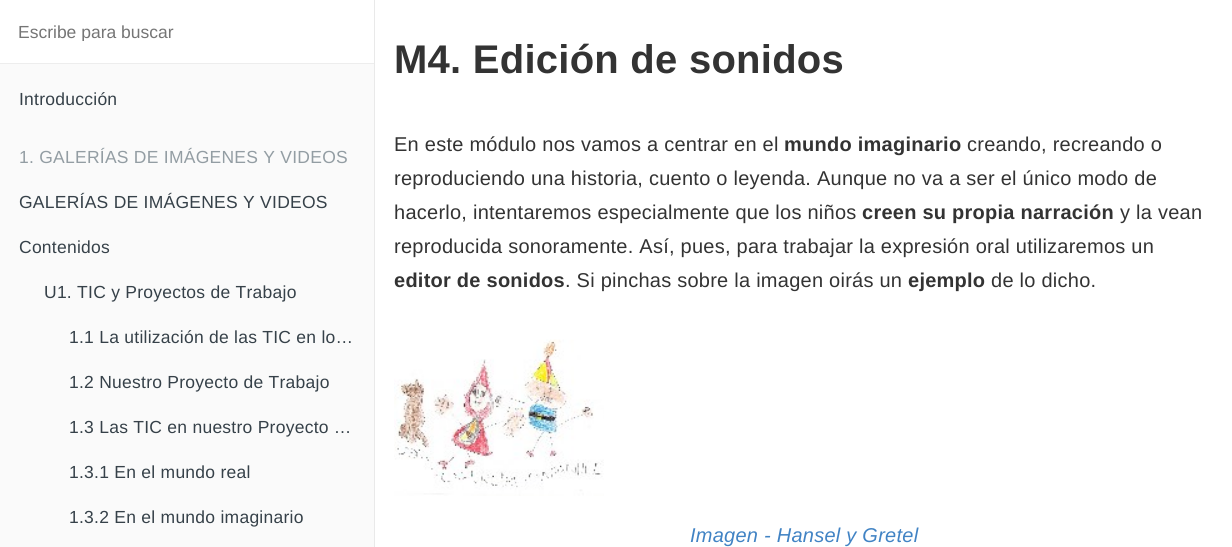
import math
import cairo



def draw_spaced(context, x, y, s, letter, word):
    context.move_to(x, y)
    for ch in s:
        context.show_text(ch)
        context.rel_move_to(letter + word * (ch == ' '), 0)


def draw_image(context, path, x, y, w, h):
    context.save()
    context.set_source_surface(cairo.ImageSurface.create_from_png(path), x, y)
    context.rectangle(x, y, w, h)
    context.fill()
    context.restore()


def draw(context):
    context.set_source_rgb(1, 1, 1)
    context.paint()
    context.set_source_rgb(250 / 255, 250 / 255, 250 / 255)
    context.rectangle(0, 64, 374, 483)
    context.fill()
    context.set_source_rgb(233 / 255, 233 / 255, 233 / 255)
    context.rectangle(374, 0, 1, 547)
    context.fill()
    context.set_source_rgb(237 / 255, 237 / 255, 237 / 255)
    context.rectangle(0, 63, 374, 1)
    context.fill()
    draw_image(context, "images/1.png", 394, 339, 210, 157)
    context.save()
    context.rectangle(18, 21, 338, 20)
    context.clip()
    context.select_font_face("Liberation Sans")
    context.set_font_size(17.5)
    context.set_source_rgb(117 / 255, 117 / 255, 117 / 255)
    context.move_to(18, 38)
    context.show_text("Escribe para buscar")
    context.restore()
    context.select_font_face("Liberation Sans")
    context.set_font_size(17.5)
    context.set_source_rgb(54 / 255, 65 / 255, 73 / 255)
    draw_spaced(context, 19, 105, "Introducción", 0.25, 0)
    context.set_source_rgb(147 / 255, 157 / 255, 163 / 255)
    draw_spaced(context, 19, 163, "1. GALERÍAS DE IMÁGENES Y VIDEOS", 0.25, 0)
    context.set_source_rgb(54 / 255, 65 / 255, 73 / 255)
    draw_spaced(context, 19, 208, "GALERÍAS DE IMÁGENES Y VIDEOS", 0.25, 0)
    draw_spaced(context, 19, 253, "Contenidos", 0.25, 0)
    draw_spaced(context, 44, 298, "U1. TIC y Proyectos de Trabajo", 0.25, 0)
    draw_spaced(context, 69, 343, "1.1 La utilización de las TIC en lo…", 0.25, 0)
    draw_spaced(context, 69, 388, "1.2 Nuestro Proyecto de Trabajo", 0.25, 0)
    draw_spaced(context, 69, 433, "1.3 Las TIC en nuestro Proyecto …", 0.25, 0)
    draw_spaced(context, 69, 478, "1.3.1 En el mundo real", 0.25, 0)
    draw_spaced(context, 69, 523, "1.3.2 En el mundo imaginario", 0.25, 0)
    context.select_font_face("Liberation Sans", cairo.FontSlant.NORMAL, cairo.FontWeight.BOLD)
    context.set_font_size(40)
    context.set_source_rgb(51 / 255, 51 / 255, 51 / 255)
    draw_spaced(context, 394, 73, "M4. Edición de sonidos", 0.25, 0)
    context.select_font_face("Liberation Sans")
    context.set_font_size(20)
    draw_spaced(context, 394, 151, "En este módulo nos vamos a centrar en el", 0.25, 0)
    context.select_font_face("Liberation Sans", cairo.FontSlant.NORMAL, cairo.FontWeight.BOLD)
    draw_spaced(context, 784, 151, "mundo imaginario", 0.25, 0)
    context.select_font_face("Liberation Sans")
    draw_spaced(context, 967, 151, "creando, recreando o", 0.25, 0)
    draw_spaced(context, 394, 185, "reproduciendo una historia, cuento o leyenda. Aunque no va a ser el único modo de", 0.25, 0)
    draw_spaced(context, 394, 219, "hacerlo, intentaremos especialmente que los niños", 0.25, 0)
    context.select_font_face("Liberation Sans", cairo.FontSlant.NORMAL, cairo.FontWeight.BOLD)
    draw_spaced(context, 862, 219, "creen su propia narración", 0.25, 0)
    context.select_font_face("Liberation Sans")
    draw_spaced(context, 1120, 219, "y la vean", 0.25, 0)
    draw_spaced(context, 394, 253, "reproducida sonoramente. Así, pues, para trabajar la expresión oral utilizaremos un", 0.25, 0)
    context.select_font_face("Liberation Sans", cairo.FontSlant.NORMAL, cairo.FontWeight.BOLD)
    draw_spaced(context, 394, 287, "editor de sonidos", 0.25, 0)
    context.select_font_face("Liberation Sans")
    draw_spaced(context, 565, 287, ". Si pinchas sobre la imagen oirás un", 0.25, 0)
    context.select_font_face("Liberation Sans", cairo.FontSlant.NORMAL, cairo.FontWeight.BOLD)
    draw_spaced(context, 908, 287, "ejemplo", 0.25, 0)
    context.select_font_face("Liberation Sans")
    draw_spaced(context, 991, 287, "de lo dicho.", 0.25, 0)
    context.select_font_face("Liberation Sans", cairo.FontSlant.ITALIC)
    context.set_source_rgb(65 / 255, 131 / 255, 196 / 255)
    draw_spaced(context, 690, 542, "Imagen - Hansel y Gretel", 0.25, 0)


surface = cairo.ImageSurface(cairo.Format.RGB24, 1232, 547)
context = cairo.Context(surface)
options = cairo.FontOptions()
options.set_hint_metrics(cairo.HintMetrics.OFF)
options.set_hint_style(cairo.HintStyle.NONE)
context.set_font_options(options)
context.set_miter_limit(4)
draw(context)
surface.write_to_png("out.png")
